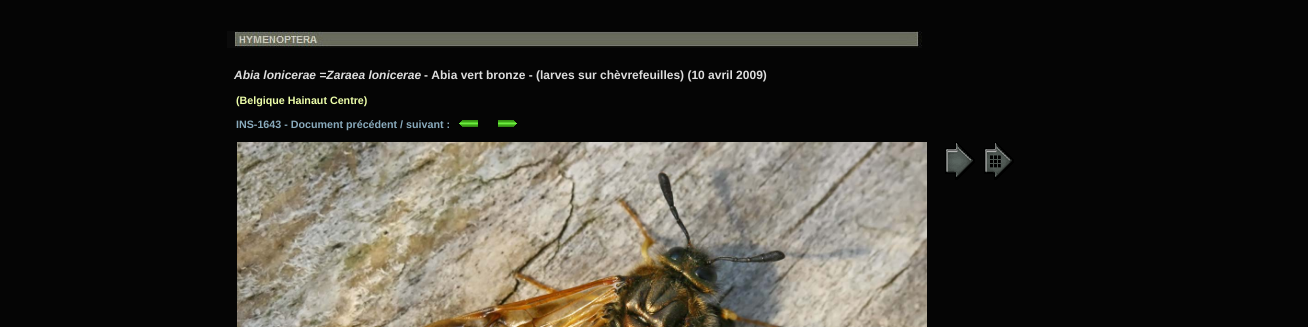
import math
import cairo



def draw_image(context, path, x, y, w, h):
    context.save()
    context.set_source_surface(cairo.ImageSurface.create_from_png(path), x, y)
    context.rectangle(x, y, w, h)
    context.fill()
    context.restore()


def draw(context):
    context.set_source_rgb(5 / 255, 5 / 255, 5 / 255)
    context.paint()
    draw_image(context, "images/1.png", 227, 31, 695, 17)
    draw_image(context, "images/2.png", 459, 120, 19, 7)
    draw_image(context, "images/3.png", 498, 120, 19, 7)
    draw_image(context, "images/4.png", 237, 142, 690, 185)
    draw_image(context, "images/5.png", 945, 142, 30, 38)
    draw_image(context, "images/6.png", 984, 142, 30, 38)
    context.select_font_face("Liberation Sans", cairo.FontSlant.ITALIC, cairo.FontWeight.BOLD)
    context.set_font_size(12)
    context.set_source_rgb(221 / 255, 221 / 255, 221 / 255)
    context.move_to(234, 79)
    context.show_text("Abia lonicerae =Zaraea lonicerae")
    context.select_font_face("Liberation Sans", cairo.FontSlant.NORMAL, cairo.FontWeight.BOLD)
    context.move_to(424, 79)
    context.show_text("- Abia vert bronze - (larves sur chèvrefeuilles) (10 avril 2009)")
    context.set_font_size(10.7)
    context.set_source_rgb(238 / 255, 1, 170 / 255)
    context.move_to(236, 104)
    context.show_text("(Belgique Hainaut Centre)")
    context.set_source_rgb(137 / 255, 170 / 255, 188 / 255)
    context.move_to(236, 128)
    context.show_text("INS-1643 - Document précédent / suivant :")


surface = cairo.ImageSurface(cairo.Format.RGB24, 1308, 327)
context = cairo.Context(surface)
options = cairo.FontOptions()
options.set_hint_metrics(cairo.HintMetrics.OFF)
options.set_hint_style(cairo.HintStyle.NONE)
context.set_font_options(options)
context.set_miter_limit(4)
draw(context)
surface.write_to_png("out.png")
